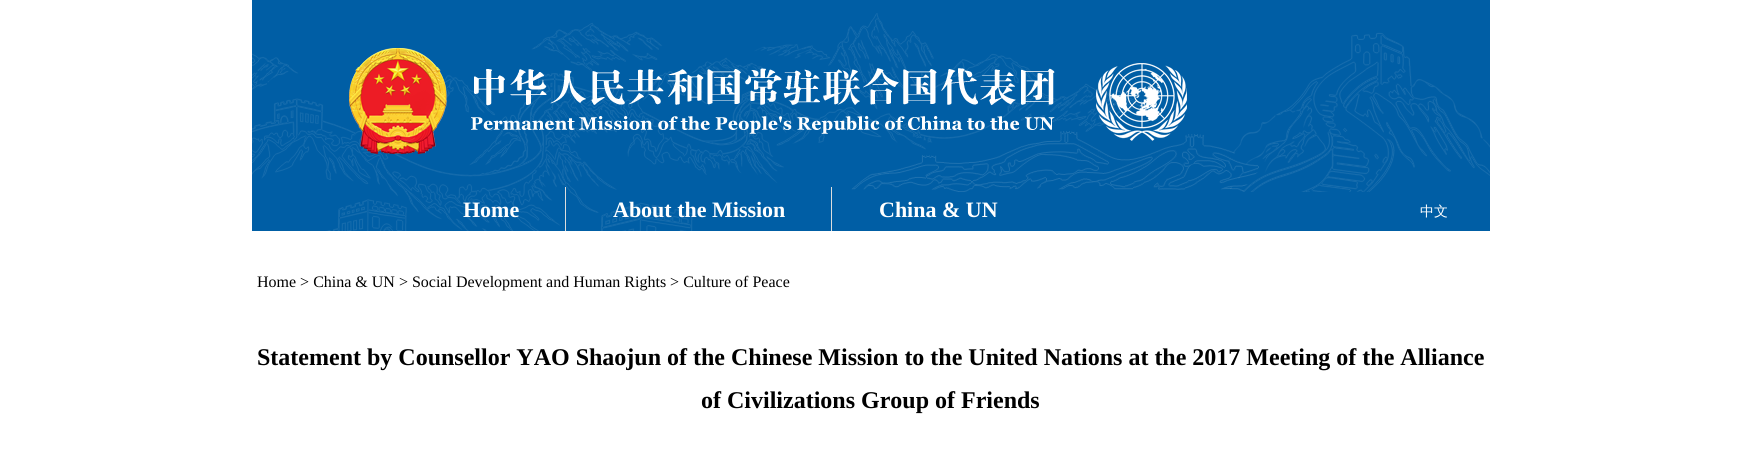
import math
import cairo



def draw_image(context, path, x, y, w, h):
    context.save()
    context.set_source_surface(cairo.ImageSurface.create_from_png(path), x, y)
    context.rectangle(x, y, w, h)
    context.fill()
    context.restore()


def draw(context):
    context.set_source_rgb(1, 1, 1)
    context.paint()
    draw_image(context, "images/1.png", 252, 0, 1238, 231)
    context.set_source_rgb(221 / 255, 221 / 255, 221 / 255)
    context.rectangle(565, 187, 1, 44)
    context.fill()
    context.rectangle(831, 187, 1, 44)
    context.fill()
    context.select_font_face("Liberation Serif", cairo.FontSlant.NORMAL, cairo.FontWeight.BOLD)
    context.set_font_size(22)
    context.set_source_rgb(1, 1, 1)
    context.move_to(463, 217)
    context.show_text("Home")
    context.move_to(613, 217)
    context.show_text("About the Mission")
    context.move_to(879, 217)
    context.show_text("China & UN")
    context.select_font_face("WenQuanYi Zen Hei Medium")
    context.set_font_size(14)
    context.move_to(1420, 216)
    context.show_text("中文")
    context.select_font_face("Liberation Serif")
    context.set_font_size(16)
    context.set_source_rgb(0, 0, 0)
    context.move_to(257, 287)
    context.show_text("Home > China & UN > Social Development and Human Rights > Culture of Peace")
    context.select_font_face("Liberation Serif", cairo.FontSlant.NORMAL, cairo.FontWeight.BOLD)
    context.set_font_size(24)
    context.move_to(257, 365)
    context.show_text("Statement by Counsellor YAO Shaojun of the Chinese Mission to the United Nations at the 2017 Meeting of the Alliance")
    context.move_to(701, 408)
    context.show_text("of Civilizations Group of Friends")


surface = cairo.ImageSurface(cairo.Format.RGB24, 1741, 452)
context = cairo.Context(surface)
options = cairo.FontOptions()
options.set_hint_metrics(cairo.HintMetrics.OFF)
options.set_hint_style(cairo.HintStyle.NONE)
context.set_font_options(options)
context.set_miter_limit(4)
draw(context)
surface.write_to_png("out.png")
